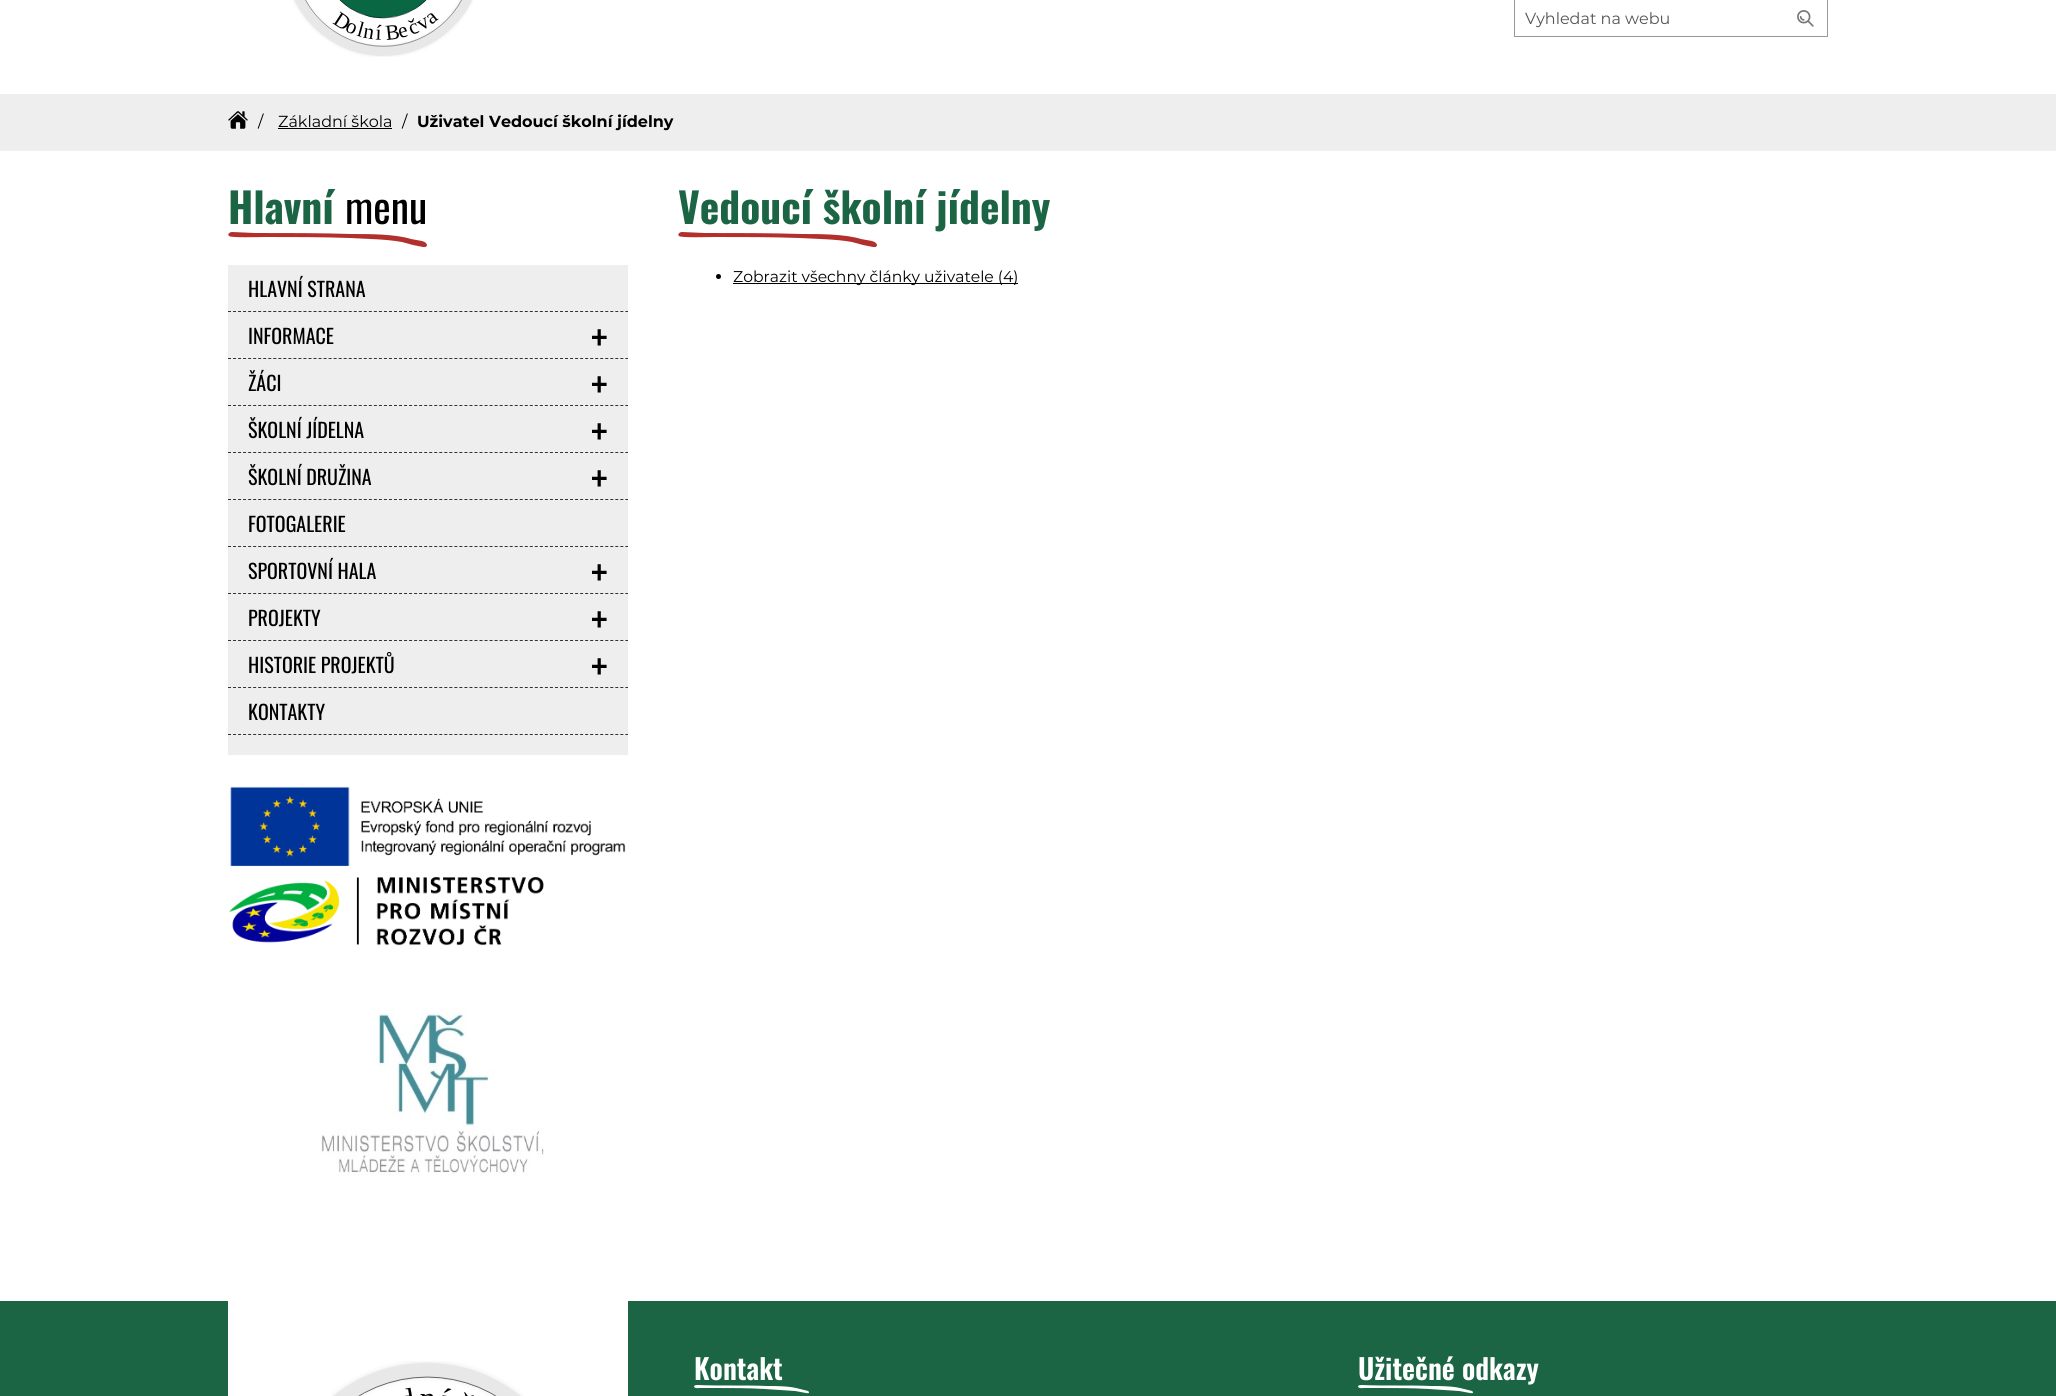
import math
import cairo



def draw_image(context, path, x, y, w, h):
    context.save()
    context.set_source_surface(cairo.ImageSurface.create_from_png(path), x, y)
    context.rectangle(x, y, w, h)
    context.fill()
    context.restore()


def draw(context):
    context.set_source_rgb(1, 1, 1)
    context.paint()
    draw_image(context, "images/1.png", 293, 0, 180, 57)
    context.rectangle(1514.5, -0.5, 313, 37)
    context.set_source_rgb(153 / 255, 153 / 255, 153 / 255)
    context.set_line_width(1)
    context.stroke()
    draw_image(context, "images/2.png", 1797, 10, 17, 17)
    context.set_source_rgb(238 / 255, 238 / 255, 238 / 255)
    context.rectangle(0, 94, 2056, 57)
    context.fill()
    draw_image(context, "images/3.png", 228, 111, 20, 18)
    context.set_source_rgb(0, 0, 0)
    context.rectangle(278, 128, 114, 1)
    context.fill()
    context.set_source_rgb(178 / 255, 47 / 255, 44 / 255)
    context.new_path()
    context.move_to(411, 239)
    context.curve_to(395, 234, 369, 234, 352, 234)
    context.curve_to(320, 233, 287, 233, 255, 233)
    context.line_to(232, 232)
    context.curve_to(230, 232, 227, 234, 229, 236)
    context.curve_to(231, 238, 259, 237, 265, 237)
    context.curve_to(293, 237, 322, 237, 350, 238)
    context.curve_to(367, 239, 385, 239, 402, 242)
    context.line_to(413, 245)
    context.line_to(423, 247)
    context.curve_to(428, 248, 429, 243, 422, 241)
    context.close_path()
    context.fill()
    context.set_source_rgb(238 / 255, 238 / 255, 238 / 255)
    context.rectangle(228, 265, 400, 490)
    context.fill()
    context.new_path()
    context.move_to(228, 311.5)
    context.line_to(628, 311.5)
    context.set_source_rgb(51 / 255, 51 / 255, 51 / 255)
    context.set_dash([3, 2.03])
    context.stroke()
    context.new_path()
    context.move_to(228, 358.5)
    context.line_to(628, 358.5)
    context.stroke()
    context.new_path()
    context.move_to(228, 405.5)
    context.line_to(628, 405.5)
    context.stroke()
    context.new_path()
    context.move_to(228, 452.5)
    context.line_to(628, 452.5)
    context.stroke()
    context.new_path()
    context.move_to(228, 499.5)
    context.line_to(628, 499.5)
    context.stroke()
    context.new_path()
    context.move_to(228, 546.5)
    context.line_to(628, 546.5)
    context.stroke()
    context.new_path()
    context.move_to(228, 593.5)
    context.line_to(628, 593.5)
    context.stroke()
    context.new_path()
    context.move_to(228, 640.5)
    context.line_to(628, 640.5)
    context.stroke()
    context.new_path()
    context.move_to(228, 687.5)
    context.line_to(628, 687.5)
    context.stroke()
    context.new_path()
    context.move_to(228, 734.5)
    context.line_to(628, 734.5)
    context.stroke()
    draw_image(context, "images/4.png", 229, 786, 397, 160)
    draw_image(context, "images/5.png", 321, 1009, 223, 167)
    context.set_source_rgb(178 / 255, 47 / 255, 44 / 255)
    context.new_path()
    context.move_to(861, 239)
    context.curve_to(845, 234, 819, 234, 802, 234)
    context.curve_to(770, 233, 737, 233, 705, 233)
    context.line_to(682, 232)
    context.curve_to(680, 232, 677, 234, 679, 236)
    context.curve_to(681, 238, 709, 237, 715, 237)
    context.curve_to(743, 237, 772, 237, 800, 238)
    context.curve_to(817, 239, 835, 239, 852, 242)
    context.line_to(863, 245)
    context.line_to(873, 247)
    context.curve_to(878, 248, 879, 243, 872, 241)
    context.close_path()
    context.fill()
    context.set_source_rgb(0, 0, 0)
    context.arc(718.5, 276.5, 2.5, 0, 2 * math.pi)
    context.fill()
    context.rectangle(733, 283, 285, 1)
    context.fill()
    context.set_source_rgb(27 / 255, 101 / 255, 69 / 255)
    context.rectangle(0, 1301, 2056, 95)
    context.fill()
    context.set_source_rgb(1, 1, 1)
    context.rectangle(228, 1301, 400, 95)
    context.fill()
    draw_image(context, "images/6.png", 331, 1361, 192, 35)
    context.new_path()
    context.move_to(800, 1389)
    context.curve_to(790, 1386, 778, 1386, 767, 1386)
    context.curve_to(744, 1385, 721, 1386, 698, 1385)
    context.curve_to(697, 1385, 695, 1385, 694, 1386)
    context.curve_to(694, 1389, 699, 1388, 700, 1388)
    context.line_to(715, 1388)
    context.curve_to(732, 1388, 748, 1388, 765, 1389)
    context.line_to(795, 1391)
    context.line_to(806, 1393)
    context.curve_to(807, 1393, 809, 1394, 809, 1392)
    context.line_to(808, 1391)
    context.close_path()
    context.fill()
    context.new_path()
    context.move_to(1464, 1389)
    context.curve_to(1454, 1386, 1442, 1386, 1431, 1386)
    context.curve_to(1408, 1385, 1385, 1386, 1362, 1385)
    context.curve_to(1361, 1385, 1359, 1385, 1358, 1386)
    context.curve_to(1358, 1389, 1363, 1388, 1364, 1388)
    context.line_to(1379, 1388)
    context.curve_to(1396, 1388, 1412, 1388, 1429, 1389)
    context.line_to(1459, 1391)
    context.line_to(1470, 1393)
    context.curve_to(1471, 1393, 1473, 1394, 1473, 1392)
    context.line_to(1472, 1391)
    context.close_path()
    context.fill()
    context.select_font_face("Montserrat")
    context.set_font_size(16)
    context.set_source_rgb(85 / 255, 85 / 255, 85 / 255)
    context.move_to(1525, 24)
    context.show_text("Vyhledat na webu")
    context.set_source_rgb(0, 0, 0)
    context.move_to(258, 127)
    context.show_text("/")
    context.move_to(278, 127)
    context.show_text("Základní škola")
    context.move_to(402, 127)
    context.show_text("/")
    context.select_font_face("Montserrat", cairo.FontSlant.NORMAL, cairo.FontWeight.BOLD)
    context.move_to(417, 127)
    context.show_text("Uživatel Vedoucí školní jídelny")
    context.select_font_face("Oswald", cairo.FontSlant.NORMAL, cairo.FontWeight.BOLD)
    context.set_font_size(41.5)
    context.set_source_rgb(27 / 255, 101 / 255, 69 / 255)
    context.move_to(228, 224)
    context.show_text("Hlavní")
    context.select_font_face("Oswald")
    context.set_source_rgb(0, 0, 0)
    context.move_to(345, 224)
    context.show_text("menu")
    context.set_font_size(20)
    context.move_to(248, 297)
    context.show_text("HLAVNÍ STRANA")
    context.move_to(248, 344)
    context.show_text("INFORMACE")
    context.set_font_size(40)
    context.move_to(591, 354)
    context.show_text("+")
    context.set_font_size(20)
    context.move_to(248, 391)
    context.show_text("ŽÁCI")
    context.set_font_size(40)
    context.move_to(591, 401)
    context.show_text("+")
    context.set_font_size(20)
    context.move_to(248, 438)
    context.show_text("ŠKOLNÍ JÍDELNA")
    context.set_font_size(40)
    context.move_to(591, 448)
    context.show_text("+")
    context.set_font_size(20)
    context.move_to(248, 485)
    context.show_text("ŠKOLNÍ DRUŽINA")
    context.set_font_size(40)
    context.move_to(591, 495)
    context.show_text("+")
    context.set_font_size(20)
    context.move_to(248, 532)
    context.show_text("FOTOGALERIE")
    context.move_to(248, 579)
    context.show_text("SPORTOVNÍ HALA")
    context.set_font_size(40)
    context.move_to(591, 589)
    context.show_text("+")
    context.set_font_size(20)
    context.move_to(248, 626)
    context.show_text("PROJEKTY")
    context.set_font_size(40)
    context.move_to(591, 636)
    context.show_text("+")
    context.set_font_size(20)
    context.move_to(248, 673)
    context.show_text("HISTORIE PROJEKTŮ")
    context.set_font_size(40)
    context.move_to(591, 683)
    context.show_text("+")
    context.set_font_size(20)
    context.move_to(248, 720)
    context.show_text("KONTAKTY")
    context.select_font_face("Oswald", cairo.FontSlant.NORMAL, cairo.FontWeight.BOLD)
    context.set_font_size(41.5)
    context.set_source_rgb(27 / 255, 101 / 255, 69 / 255)
    context.move_to(678, 224)
    context.show_text("Vedoucí školní jídelny")
    context.select_font_face("Montserrat")
    context.set_font_size(15.6)
    context.set_source_rgb(0, 0, 0)
    context.move_to(733, 282)
    context.show_text("Zobrazit všechny články uživatele (4)")
    context.select_font_face("Oswald SemiBold")
    context.set_font_size(28.25)
    context.set_source_rgb(1, 1, 1)
    context.move_to(694, 1380)
    context.show_text("Kontakt")
    context.move_to(1358, 1380)
    context.show_text("Užitečné odkazy")


surface = cairo.ImageSurface(cairo.Format.RGB24, 2056, 1396)
context = cairo.Context(surface)
options = cairo.FontOptions()
options.set_hint_metrics(cairo.HintMetrics.OFF)
options.set_hint_style(cairo.HintStyle.NONE)
context.set_font_options(options)
context.set_miter_limit(4)
draw(context)
surface.write_to_png("out.png")
